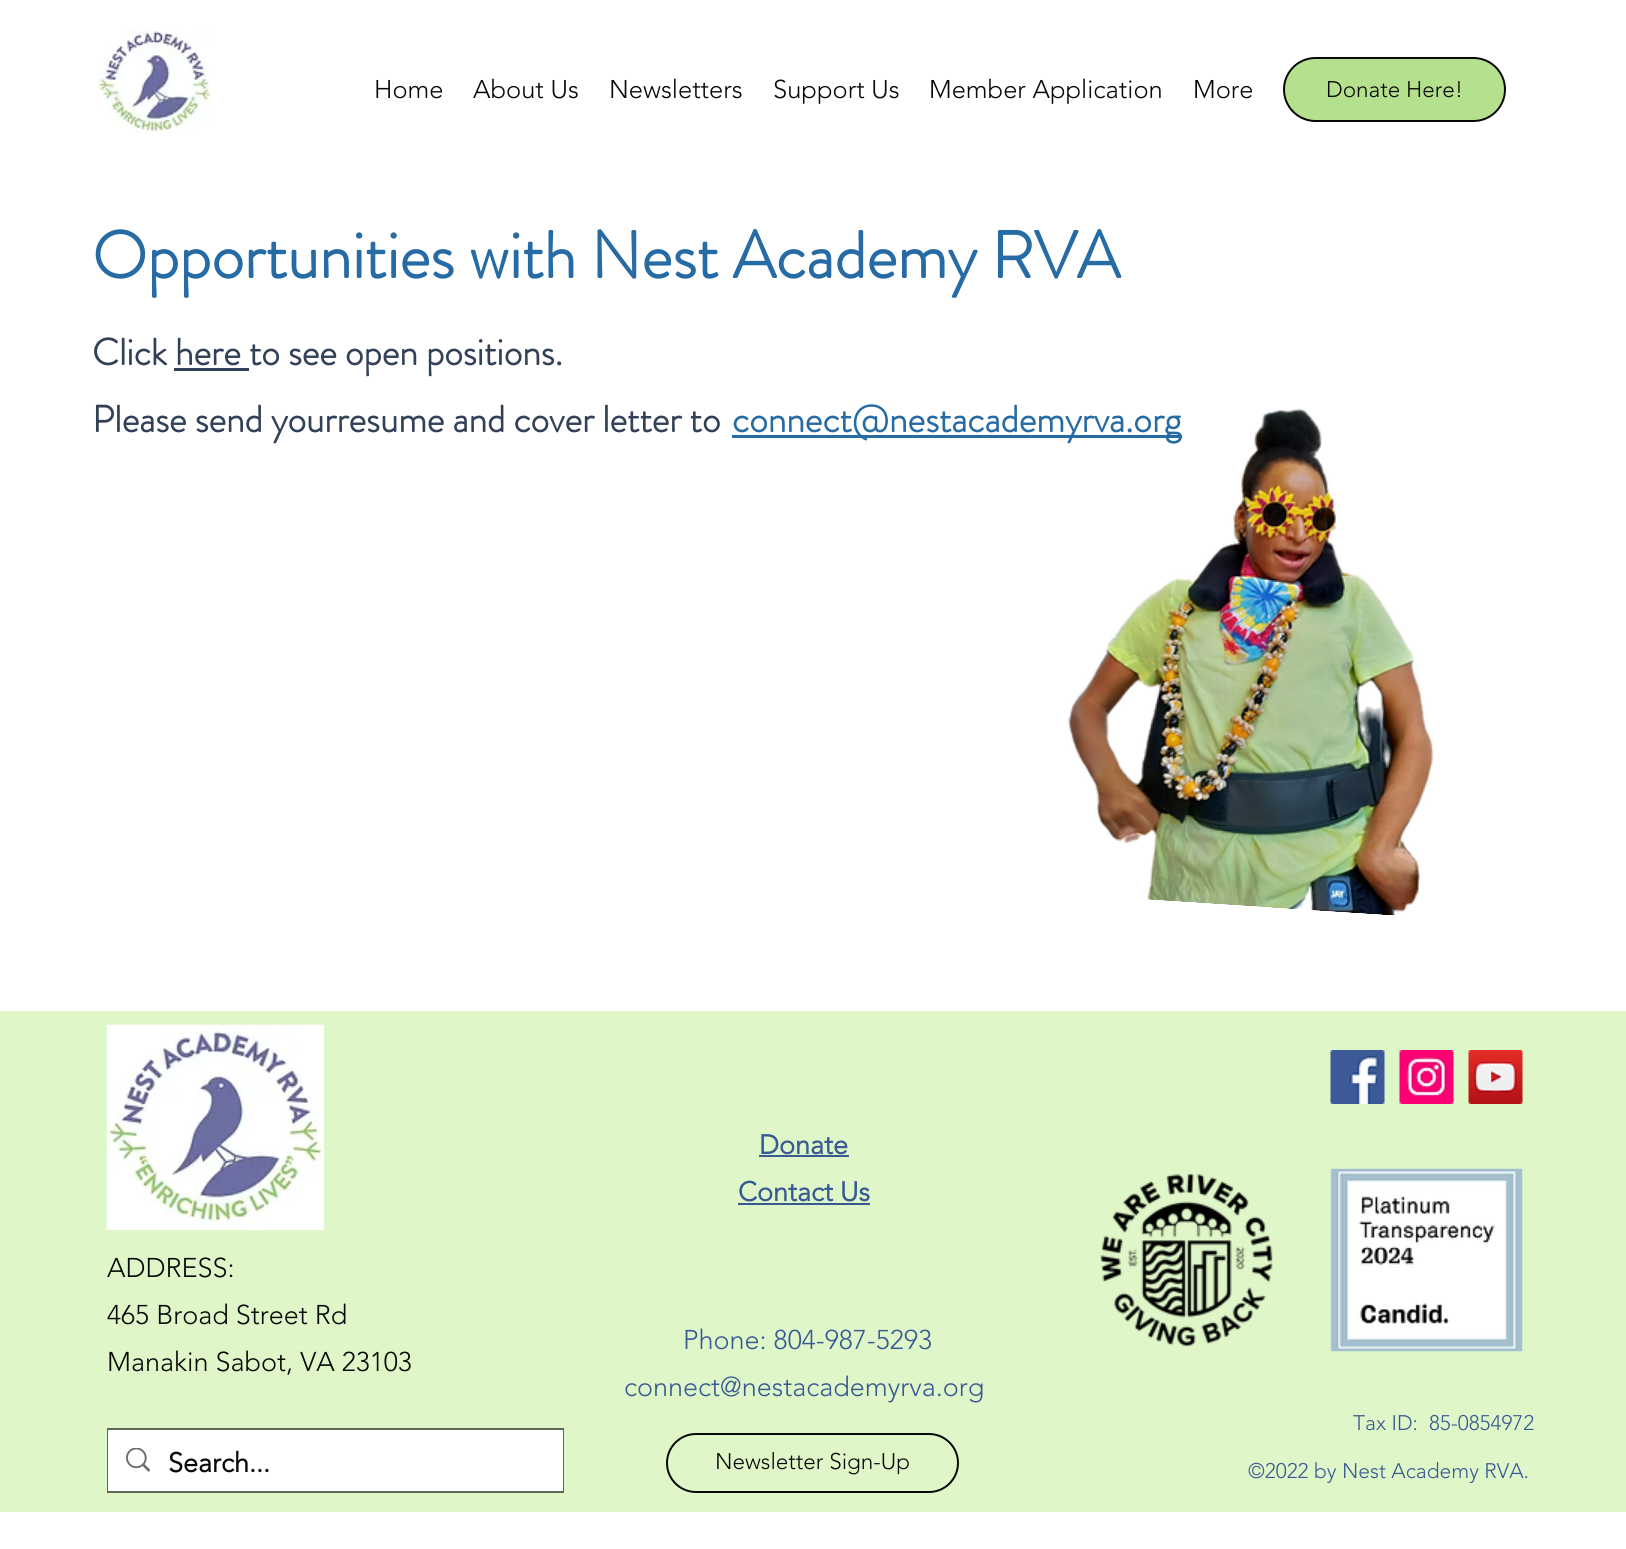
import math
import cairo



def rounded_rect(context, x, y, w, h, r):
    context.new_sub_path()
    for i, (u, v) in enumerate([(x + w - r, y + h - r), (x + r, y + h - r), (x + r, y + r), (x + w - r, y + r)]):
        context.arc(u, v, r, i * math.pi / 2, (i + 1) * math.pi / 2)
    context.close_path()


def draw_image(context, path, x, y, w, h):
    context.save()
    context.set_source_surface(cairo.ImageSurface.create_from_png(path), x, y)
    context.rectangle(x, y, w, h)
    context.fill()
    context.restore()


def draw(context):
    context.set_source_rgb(1, 1, 1)
    context.paint()
    draw_image(context, "images/1.png", 97, 30, 114, 103)
    context.set_source_rgb(181 / 255, 224 / 255, 141 / 255)
    rounded_rect(context, 1284, 58, 221, 63, 31.5)
    context.fill_preserve()
    context.set_source_rgb(9 / 255, 9 / 255, 9 / 255)
    context.stroke()
    context.set_source_rgb(50 / 255, 65 / 255, 88 / 255)
    context.rectangle(174, 368, 75, 3)
    context.fill()
    context.set_source_rgb(39 / 255, 107 / 255, 165 / 255)
    context.rectangle(732, 435, 450, 3)
    context.fill()
    context.set_source_rgb(223 / 255, 247 / 255, 200 / 255)
    context.rectangle(0, 1011, 1626, 501)
    context.fill()
    draw_image(context, "images/3.png", 106, 1024, 218, 206)
    draw_image(context, "images/4.png", 1330, 1050, 55, 54)
    draw_image(context, "images/5.png", 1399, 1050, 55, 54)
    draw_image(context, "images/6.png", 1468, 1050, 55, 54)
    context.set_source_rgb(56 / 255, 89 / 255, 147 / 255)
    context.rectangle(759, 1155, 90, 2)
    context.fill()
    context.rectangle(738, 1203, 132, 2)
    context.fill()
    draw_image(context, "images/7.png", 1100, 1173, 173, 174)
    draw_image(context, "images/8.png", 1330, 1168, 193, 184)
    context.rectangle(108, 1429, 455, 63)
    context.set_source_rgb(95 / 255, 104 / 255, 85 / 255)
    context.stroke()
    context.set_source_rgb(1, 1, 1)
    context.rectangle(108, 1430, 455, 61)
    context.fill()
    draw_image(context, "images/9.png", 126, 1448, 24, 24)
    rounded_rect(context, 667, 1434, 291, 58, 29)
    context.set_source_rgb(9 / 255, 9 / 255, 9 / 255)
    context.stroke()
    context.select_font_face("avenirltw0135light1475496 Light")
    context.set_font_size(25.5)
    context.move_to(374, 98)
    context.show_text("Home")
    context.move_to(473, 98)
    context.show_text("About Us")
    context.move_to(609, 98)
    context.show_text("Newsletters")
    context.move_to(773, 98)
    context.show_text("Support Us")
    context.move_to(929, 98)
    context.show_text("Member Application")
    context.move_to(1193, 98)
    context.show_text("More")
    context.set_font_size(22.5)
    context.move_to(1326, 97)
    context.show_text("Donate Here!")
    context.select_font_face("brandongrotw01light", cairo.FontSlant.NORMAL, cairo.FontWeight.BOLD)
    context.set_font_size(66)
    context.set_source_rgb(39 / 255, 107 / 255, 165 / 255)
    context.move_to(92, 278)
    context.show_text("Opportunities with Nest Academy RVA")
    context.set_font_size(37.5)
    context.set_source_rgb(50 / 255, 65 / 255, 88 / 255)
    context.move_to(92, 365)
    context.show_text("Click here to see open positions.")
    context.move_to(92, 432)
    context.show_text("Please send your resume and cover letter to")
    context.set_source_rgb(39 / 255, 107 / 255, 165 / 255)
    context.move_to(732, 432)
    context.show_text("connect@nestacademyrva.org")
    draw_image(context, "images/2.png", 1068, 408, 366, 508)
    context.select_font_face("avenirltw0135light1475496 Light")
    context.set_font_size(27)
    context.set_source_rgb(9 / 255, 9 / 255, 9 / 255)
    context.move_to(107, 1277)
    context.show_text("ADDRESS:")
    context.move_to(107, 1324)
    context.show_text("465 Broad Street Rd")
    context.move_to(107, 1371)
    context.show_text("Manakin Sabot, VA 23103")
    context.select_font_face("avenirltw0135light1475496", cairo.FontSlant.NORMAL, cairo.FontWeight.BOLD)
    context.set_source_rgb(56 / 255, 89 / 255, 147 / 255)
    context.move_to(759, 1154)
    context.show_text("Donate")
    context.move_to(738, 1201)
    context.show_text("Contact Us")
    context.select_font_face("avenirltw0135light1475496 Light")
    context.move_to(683, 1349)
    context.show_text("Phone: 804-987-5293")
    context.move_to(624, 1396)
    context.show_text("connect@nestacademyrva.org")
    context.set_font_size(21)
    context.move_to(1353, 1430)
    context.show_text("Tax ID:  85-0854972")
    context.select_font_face("avenirltw0135light1475496", cairo.FontSlant.NORMAL, cairo.FontWeight.BOLD)
    context.set_font_size(27)
    context.set_source_rgb(9 / 255, 9 / 255, 9 / 255)
    context.move_to(168, 1472)
    context.show_text("Search...")
    context.select_font_face("avenirltw0135light1475496 Light")
    context.set_font_size(22.5)
    context.move_to(715, 1469)
    context.show_text("Newsletter Sign-Up")
    context.set_font_size(21)
    context.set_source_rgb(56 / 255, 89 / 255, 147 / 255)
    context.move_to(1248, 1478)
    context.show_text("©2022 by Nest Academy RVA.")


surface = cairo.ImageSurface(cairo.Format.RGB24, 1626, 1549)
context = cairo.Context(surface)
options = cairo.FontOptions()
options.set_hint_metrics(cairo.HintMetrics.OFF)
options.set_hint_style(cairo.HintStyle.NONE)
context.set_font_options(options)
context.set_miter_limit(4)
draw(context)
surface.write_to_png("out.png")
